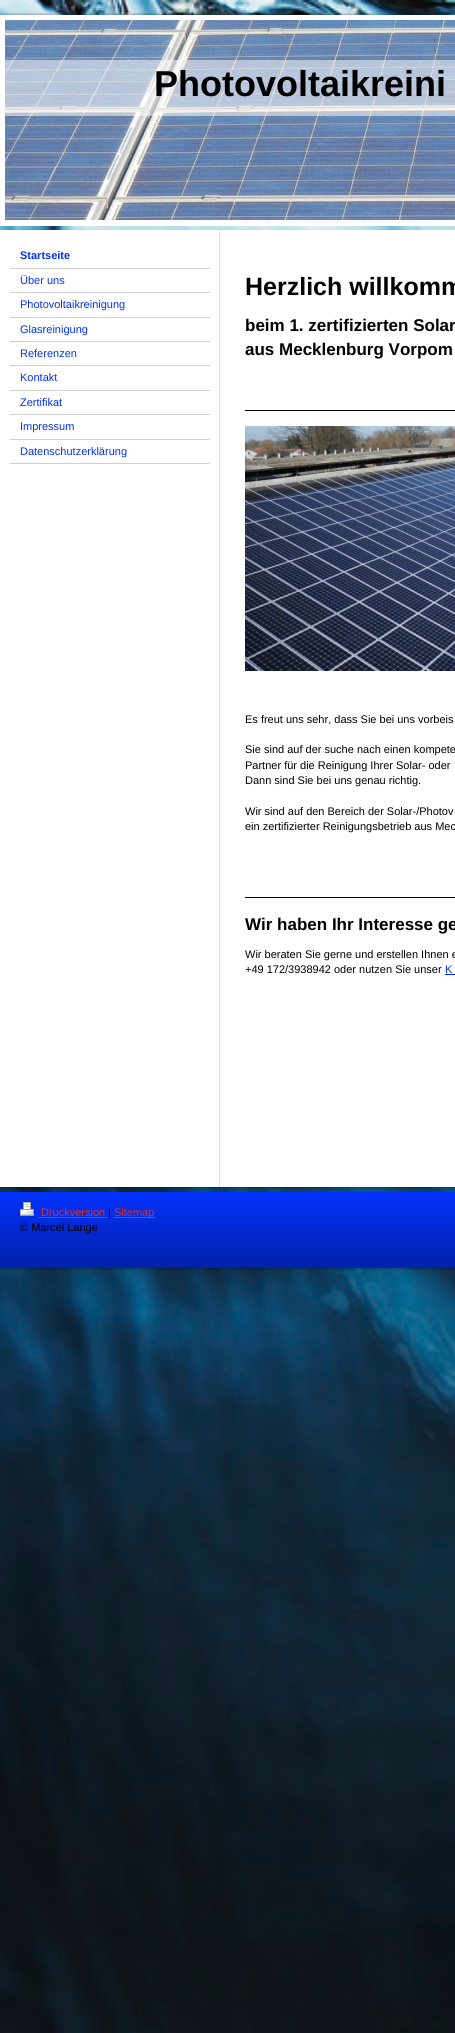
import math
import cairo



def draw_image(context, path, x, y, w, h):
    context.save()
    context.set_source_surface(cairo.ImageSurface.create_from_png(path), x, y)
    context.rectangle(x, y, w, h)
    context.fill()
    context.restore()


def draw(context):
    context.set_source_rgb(1, 1, 1)
    context.paint()
    draw_image(context, "images/1.png", 0, 0, 455, 2033)
    draw_image(context, "images/2.png", 0, 12, 455, 8)
    context.set_source_rgb(1, 1, 1)
    context.rectangle(0, 15, 5, 210)
    context.fill()
    draw_image(context, "images/3.png", 5, 20, 450, 200)
    context.set_source_rgba(1, 1, 1, 0.53)
    context.rectangle(5, 60, 450, 56)
    context.fill()
    context.set_source_rgb(1, 1, 1)
    context.rectangle(0, 220, 455, 6)
    context.fill()
    draw_image(context, "images/4.png", 0, 229, 455, 5)
    draw_image(context, "images/5.png", 0, 1185, 455, 5)
    draw_image(context, "images/6.png", 0, 234, 455, 951)
    context.set_source_rgb(207 / 255, 208 / 255, 209 / 255)
    context.rectangle(10, 268, 200, 1)
    context.fill()
    context.rectangle(10, 292, 200, 1)
    context.fill()
    context.rectangle(10, 317, 200, 1)
    context.fill()
    context.rectangle(10, 341, 200, 1)
    context.fill()
    context.rectangle(10, 365, 200, 1)
    context.fill()
    context.rectangle(10, 390, 200, 1)
    context.fill()
    context.rectangle(10, 414, 200, 1)
    context.fill()
    context.rectangle(10, 439, 200, 1)
    context.fill()
    context.rectangle(10, 463, 200, 1)
    context.fill()
    context.set_source_rgb(0, 0, 0)
    context.rectangle(245, 410, 210, 1)
    context.fill()
    draw_image(context, "images/7.png", 245, 426, 210, 245)
    context.rectangle(245, 897, 210, 1)
    context.fill()
    context.set_source_rgb(2 / 255, 49 / 255, 249 / 255)
    context.rectangle(445, 974, 10, 1)
    context.fill()
    context.set_source_rgba(0, 0, 0, 0.03)
    context.rectangle(355, 1191, 9, 1)
    context.fill()
    draw_image(context, "images/8.png", 0, 1268, 455, 3)
    context.set_source_rgb(2 / 255, 49 / 255, 249 / 255)
    context.rectangle(0, 1192, 455, 76)
    context.fill()
    draw_image(context, "images/9.png", 0, 1200, 455, 68)
    draw_image(context, "images/10.png", 20, 1202, 14, 14)
    context.set_source_rgb(219 / 255, 47 / 255, 44 / 255)
    context.rectangle(38, 1217, 70, 1)
    context.fill()
    context.rectangle(114, 1217, 41, 1)
    context.fill()
    context.select_font_face("Liberation Sans", cairo.FontSlant.NORMAL, cairo.FontWeight.BOLD)
    context.set_font_size(36)
    context.set_source_rgb(0, 0, 0)
    context.move_to(154, 96)
    context.show_text("Photovoltaikreini")
    context.set_font_size(11)
    context.set_source_rgb(2 / 255, 49 / 255, 249 / 255)
    context.move_to(20, 259)
    context.show_text("Startseite")
    context.select_font_face("Liberation Sans")
    context.move_to(20, 284)
    context.show_text("Über uns")
    context.move_to(20, 308)
    context.show_text("Photovoltaikreinigung")
    context.move_to(20, 333)
    context.show_text("Glasreinigung")
    context.move_to(20, 357)
    context.show_text("Referenzen")
    context.move_to(20, 381)
    context.show_text("Kontakt")
    context.move_to(20, 406)
    context.show_text("Zertifikat")
    context.move_to(20, 430)
    context.show_text("Impressum")
    context.move_to(20, 455)
    context.show_text("Datenschutzerklärung")
    context.select_font_face("Liberation Sans", cairo.FontSlant.NORMAL, cairo.FontWeight.BOLD)
    context.set_font_size(25)
    context.set_source_rgb(0, 0, 0)
    context.move_to(245, 295)
    context.show_text("Herzlich willkomm")
    context.set_font_size(17)
    context.move_to(245, 331)
    context.show_text("beim 1. zertifizierten Solar")
    context.move_to(245, 355)
    context.show_text("aus Mecklenburg Vorpom")
    context.select_font_face("Liberation Sans")
    context.set_font_size(11)
    context.move_to(245, 723)
    context.show_text("Es freut uns sehr, dass Sie bei uns vorbeis")
    context.move_to(245, 753)
    context.show_text("Sie sind auf der suche nach einen kompete")
    context.move_to(245, 769)
    context.show_text("Partner für die Reinigung Ihrer Solar- oder")
    context.move_to(245, 784)
    context.show_text("Dann sind Sie bei uns genau richtig.")
    context.move_to(245, 815)
    context.show_text("Wir sind auf den Bereich der Solar-/Photov")
    context.move_to(245, 830)
    context.show_text("ein zertifizierter Reinigungsbetrieb aus Mec")
    context.select_font_face("Liberation Sans", cairo.FontSlant.NORMAL, cairo.FontWeight.BOLD)
    context.set_font_size(17)
    context.move_to(245, 930)
    context.show_text("Wir haben Ihr Interesse ge")
    context.select_font_face("Liberation Sans")
    context.set_font_size(11)
    context.move_to(245, 958)
    context.show_text("Wir beraten Sie gerne und erstellen Ihnen e")
    context.move_to(245, 973)
    context.show_text("+49 172/3938942 oder nutzen Sie unser")
    context.set_source_rgb(2 / 255, 49 / 255, 249 / 255)
    context.move_to(445, 973)
    context.show_text("K")
    context.set_source_rgb(219 / 255, 47 / 255, 44 / 255)
    context.move_to(41, 1216)
    context.show_text("Druckversion")
    context.set_source_rgb(0, 0, 0)
    context.move_to(108, 1216)
    context.show_text("|")
    context.set_source_rgb(219 / 255, 47 / 255, 44 / 255)
    context.move_to(114, 1216)
    context.show_text("Sitemap")
    context.set_source_rgb(0, 0, 0)
    context.move_to(20, 1231)
    context.show_text("© Marcel Lange")


surface = cairo.ImageSurface(cairo.Format.RGB24, 455, 2033)
context = cairo.Context(surface)
options = cairo.FontOptions()
options.set_hint_metrics(cairo.HintMetrics.OFF)
options.set_hint_style(cairo.HintStyle.NONE)
context.set_font_options(options)
context.set_miter_limit(4)
draw(context)
surface.write_to_png("out.png")
